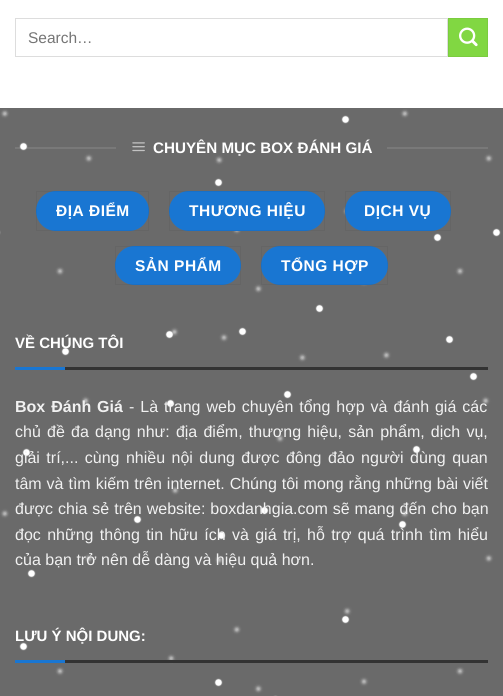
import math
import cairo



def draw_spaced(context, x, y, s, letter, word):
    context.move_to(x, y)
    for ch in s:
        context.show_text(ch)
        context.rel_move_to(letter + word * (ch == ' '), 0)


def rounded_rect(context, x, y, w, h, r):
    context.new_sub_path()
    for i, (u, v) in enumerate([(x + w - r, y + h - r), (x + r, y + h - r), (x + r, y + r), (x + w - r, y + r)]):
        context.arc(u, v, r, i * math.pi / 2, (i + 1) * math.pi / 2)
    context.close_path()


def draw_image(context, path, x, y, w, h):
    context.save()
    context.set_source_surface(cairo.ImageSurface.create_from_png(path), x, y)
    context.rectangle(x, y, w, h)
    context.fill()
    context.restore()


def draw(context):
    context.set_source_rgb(1, 1, 1)
    context.paint()
    context.rectangle(15.5, 18.5, 432, 38)
    context.set_source_rgb(221 / 255, 221 / 255, 221 / 255)
    context.set_line_width(1)
    context.stroke()
    context.set_source_rgb(129 / 255, 215 / 255, 66 / 255)
    context.rectangle(448.5, 18.5, 39, 38)
    context.fill_preserve()
    context.set_source_rgb(123 / 255, 204 / 255, 63 / 255)
    context.stroke()
    draw_image(context, "images/1.png", 459, 27, 19, 20)
    context.set_source_rgb(106 / 255, 106 / 255, 106 / 255)
    context.rectangle(0, 108, 503, 588)
    context.fill()
    draw_image(context, "images/2.png", 0, 109, 501, 587)
    context.set_source_rgba(1, 1, 1, 0.1)
    context.rectangle(15, 147, 101, 2)
    context.fill()
    draw_image(context, "images/3.png", 132, 142, 13, 10)
    context.set_source_rgb(121 / 255, 121 / 255, 121 / 255)
    context.rectangle(387, 147, 101, 2)
    context.fill()
    context.set_source_rgb(25 / 255, 118 / 255, 210 / 255)
    rounded_rect(context, 36, 191, 113, 40, 20)
    context.fill()
    context.rectangle(36.5, 191.5, 112, 39)
    context.set_source_rgba(0, 0, 0, 0.05)
    context.stroke()
    context.set_source_rgb(25 / 255, 118 / 255, 210 / 255)
    rounded_rect(context, 169, 191, 156, 40, 20)
    context.fill()
    context.rectangle(169.5, 191.5, 155, 39)
    context.set_source_rgba(0, 0, 0, 0.05)
    context.stroke()
    context.set_source_rgb(25 / 255, 118 / 255, 210 / 255)
    rounded_rect(context, 345, 191, 106, 40, 20)
    context.fill()
    context.rectangle(345.5, 191.5, 105, 39)
    context.set_source_rgba(0, 0, 0, 0.05)
    context.stroke()
    context.set_source_rgb(25 / 255, 118 / 255, 210 / 255)
    rounded_rect(context, 115, 246, 126, 39, 19.5)
    context.fill()
    context.rectangle(115.5, 246.5, 125, 38)
    context.set_source_rgba(0, 0, 0, 0.05)
    context.stroke()
    context.set_source_rgb(25 / 255, 118 / 255, 210 / 255)
    rounded_rect(context, 261, 246, 127, 39, 19.5)
    context.fill()
    context.rectangle(261.5, 246.5, 126, 38)
    context.set_source_rgba(0, 0, 0, 0.05)
    context.stroke()
    context.set_source_rgb(51 / 255, 51 / 255, 51 / 255)
    context.rectangle(65, 367, 423, 3)
    context.fill()
    context.set_source_rgb(25 / 255, 118 / 255, 210 / 255)
    context.rectangle(15, 367, 50, 3)
    context.fill()
    context.set_source_rgb(51 / 255, 51 / 255, 51 / 255)
    context.rectangle(65, 660, 423, 3)
    context.fill()
    context.set_source_rgb(25 / 255, 118 / 255, 210 / 255)
    context.rectangle(15, 660, 50, 3)
    context.fill()
    context.select_font_face("Liberation Sans")
    context.set_font_size(15.5)
    context.set_source_rgb(117 / 255, 117 / 255, 117 / 255)
    context.move_to(28, 43)
    context.show_text("Search…")
    context.select_font_face("Liberation Sans", cairo.FontSlant.NORMAL, cairo.FontWeight.BOLD)
    context.set_font_size(15.2)
    context.set_source_rgb(1, 1, 1)
    context.move_to(153, 153)
    context.show_text("CHUYÊN MỤC BOX ĐÁNH GIÁ")
    context.set_font_size(15.5)
    draw_spaced(context, 56, 216, "ĐỊA ĐIỂM", 0.5, 0)
    draw_spaced(context, 189, 216, "THƯƠNG HIỆU", 0.5, 0)
    draw_spaced(context, 364, 216, "DỊCH VỤ", 0.5, 0)
    draw_spaced(context, 135, 271, "SẢN PHẨM", 0.5, 0)
    draw_spaced(context, 281, 271, "TỔNG HỢP", 0.5, 0)
    context.set_font_size(15)
    context.move_to(15, 348)
    context.show_text("VỀ CHÚNG TÔI")
    context.set_font_size(16)
    context.set_source_rgb(241 / 255, 241 / 255, 241 / 255)
    draw_spaced(context, 15, 412, "Box Đánh Giá", 0, 1.5)
    context.select_font_face("Liberation Sans")
    draw_spaced(context, 129, 412, "- Là trang web chuyên tổng hợp và đánh giá các", 0, 1.5)
    draw_spaced(context, 15, 437, "chủ đề đa dạng như: địa điểm, thương hiệu, sản phẩm, dịch vụ,", 0, 1.75)
    draw_spaced(context, 15, 463, "giải trí,... cùng nhiều nội dung được đông đảo người dùng quan", 0, 2)
    draw_spaced(context, 15, 489, "tâm và tìm kiếm trên internet. Chúng tôi mong rằng những bài viết", 0, 0.5)
    draw_spaced(context, 15, 514, "được chia sẻ trên website: boxdanhgia.com sẽ mang đến cho bạn", 0, 0.5)
    draw_spaced(context, 15, 540, "đọc những thông tin hữu ích và giá trị, hỗ trợ quá trình tìm hiểu", 0, 1.9)
    context.move_to(15, 565)
    context.show_text("của bạn trở nên dễ dàng và hiệu quả hơn.")
    context.select_font_face("Liberation Sans", cairo.FontSlant.NORMAL, cairo.FontWeight.BOLD)
    context.set_font_size(15)
    context.set_source_rgb(1, 1, 1)
    context.move_to(15, 641)
    context.show_text("LƯU Ý NỘI DUNG:")


surface = cairo.ImageSurface(cairo.Format.RGB24, 503, 696)
context = cairo.Context(surface)
options = cairo.FontOptions()
options.set_hint_metrics(cairo.HintMetrics.OFF)
options.set_hint_style(cairo.HintStyle.NONE)
context.set_font_options(options)
context.set_miter_limit(4)
draw(context)
surface.write_to_png("out.png")
